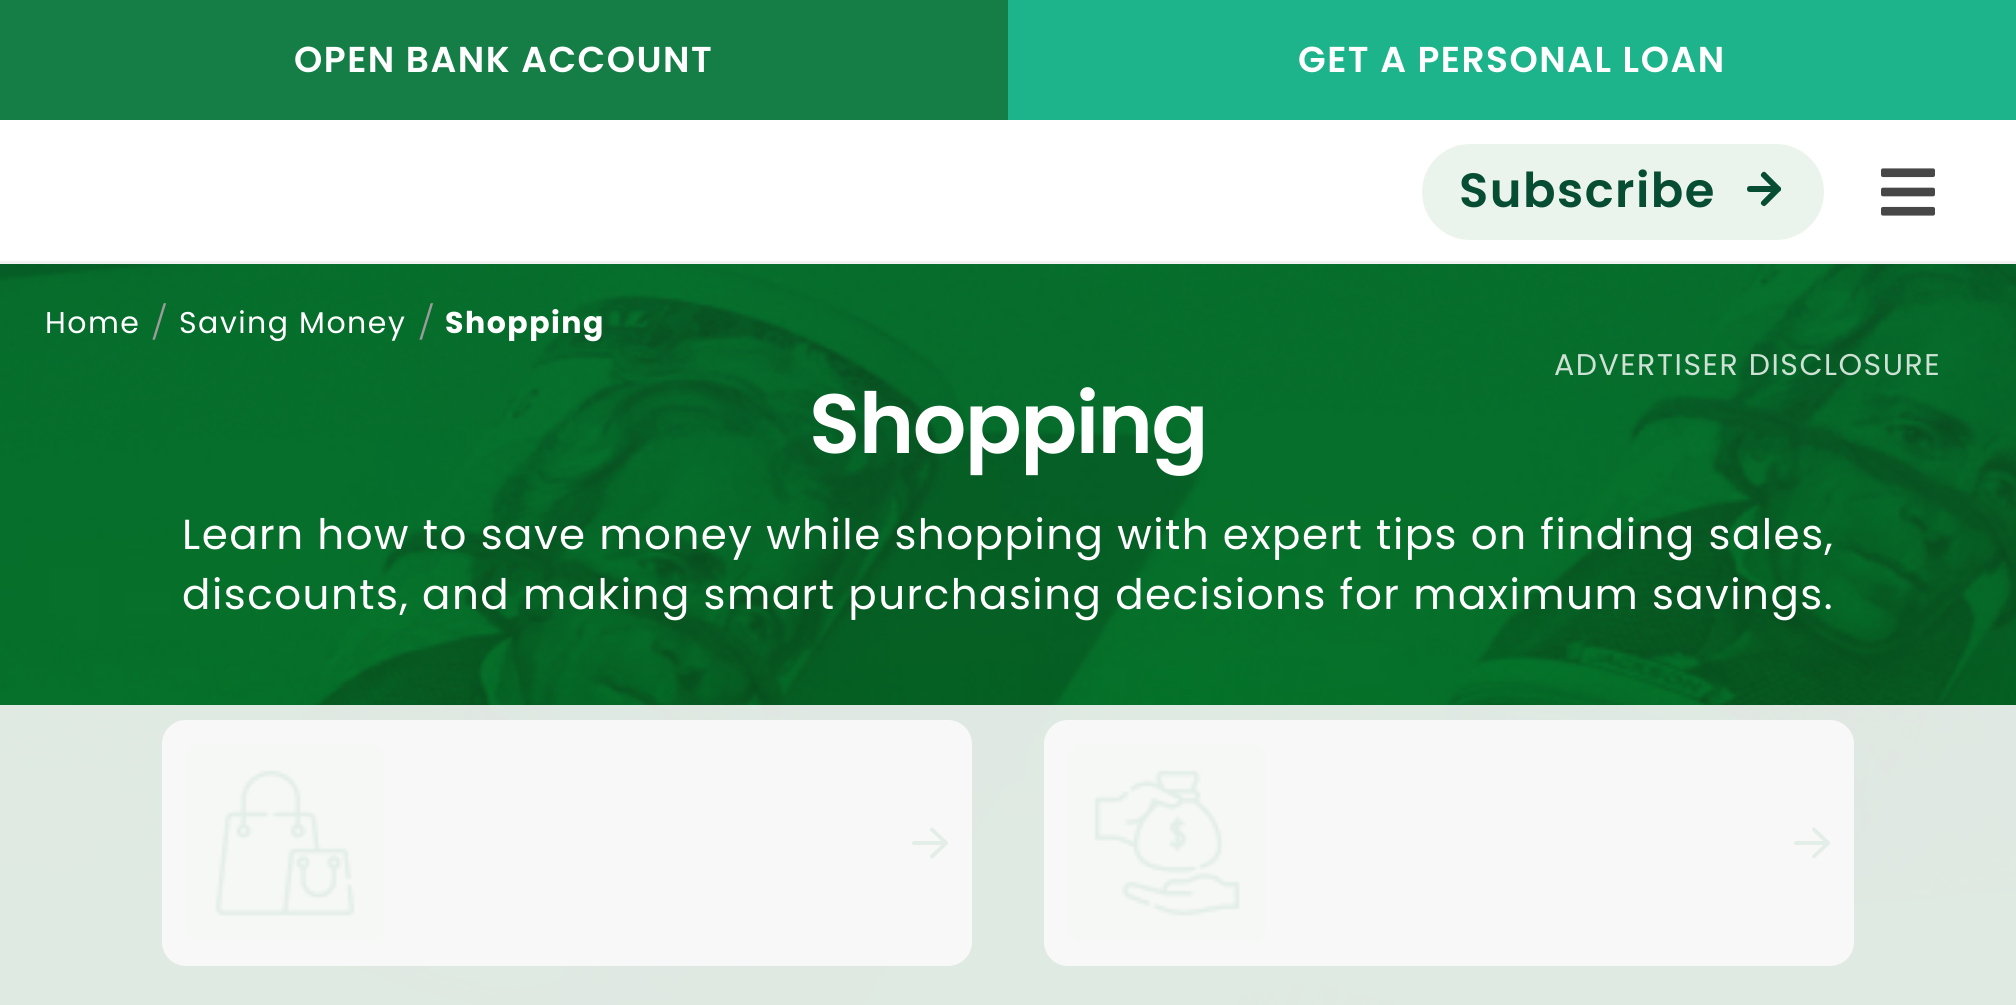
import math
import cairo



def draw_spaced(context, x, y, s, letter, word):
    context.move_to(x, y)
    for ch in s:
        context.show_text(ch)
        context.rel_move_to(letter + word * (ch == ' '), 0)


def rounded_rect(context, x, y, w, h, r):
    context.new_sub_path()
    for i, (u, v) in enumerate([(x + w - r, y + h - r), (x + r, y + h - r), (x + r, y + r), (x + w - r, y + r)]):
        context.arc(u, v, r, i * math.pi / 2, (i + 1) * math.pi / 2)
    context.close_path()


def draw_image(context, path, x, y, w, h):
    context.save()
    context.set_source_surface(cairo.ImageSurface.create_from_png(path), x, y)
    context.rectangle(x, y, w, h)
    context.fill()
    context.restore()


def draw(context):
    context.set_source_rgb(1, 1, 1)
    context.paint()
    context.set_source_rgb(21 / 255, 126 / 255, 71 / 255)
    context.rectangle(0, 0, 1008, 120)
    context.fill()
    context.set_source_rgb(29 / 255, 179 / 255, 139 / 255)
    context.rectangle(1008, 0, 1008, 120)
    context.fill()
    context.set_source_rgb(242 / 255, 242 / 255, 242 / 255)
    context.rectangle(0, 261, 2016, 3)
    context.fill()
    context.set_source_rgb(235 / 255, 244 / 255, 236 / 255)
    rounded_rect(context, 1422, 144, 402, 96, 48)
    context.fill()
    draw_image(context, "images/1.png", 1747, 171, 35, 36)
    draw_image(context, "images/2.png", 1881, 168, 54, 48)
    draw_image(context, "images/3.png", 0, 264, 2016, 741)
    context.set_source_rgb(1, 1, 1)
    rounded_rect(context, 162, 720, 810, 246, 24)
    context.fill()
    draw_image(context, "images/4.png", 186, 744, 198, 198)
    draw_image(context, "images/5.png", 912, 827, 36, 32)
    rounded_rect(context, 1044, 720, 810, 246, 24)
    context.fill()
    draw_image(context, "images/6.png", 1068, 744, 198, 198)
    draw_image(context, "images/5.png", 1794, 827, 36, 32)
    context.set_source_rgba(247 / 255, 247 / 255, 247 / 255, 0.9)
    context.rectangle(0, 705, 2016, 300)
    context.fill()
    context.select_font_face("Poppins SemiBold")
    context.set_font_size(36)
    context.set_source_rgb(1, 1, 1)
    draw_spaced(context, 294, 72, "OPEN BANK ACCOUNT", 1.5, 0)
    draw_spaced(context, 1298, 72, "GET A PERSONAL LOAN", 1.5, 0)
    context.set_font_size(48)
    context.set_source_rgb(6 / 255, 77 / 255, 52 / 255)
    draw_spaced(context, 1459, 207, "Subscribe", 1.5, 0)
    context.select_font_face("Poppins")
    context.set_font_size(30)
    context.set_source_rgb(1, 1, 1)
    draw_spaced(context, 45, 333, "Home", 1.5, 0)
    context.select_font_face("Source Sans Pro")
    context.set_font_size(42)
    context.set_source_rgb(155 / 255, 155 / 255, 155 / 255)
    context.move_to(152, 333)
    context.show_text("/")
    context.select_font_face("Poppins")
    context.set_font_size(30)
    context.set_source_rgb(1, 1, 1)
    draw_spaced(context, 179, 333, "Saving Money", 1.5, 0)
    context.select_font_face("Source Sans Pro")
    context.set_font_size(42)
    context.set_source_rgb(155 / 255, 155 / 255, 155 / 255)
    context.move_to(419, 333)
    context.show_text("/")
    context.select_font_face("Poppins", cairo.FontSlant.NORMAL, cairo.FontWeight.BOLD)
    context.set_font_size(30)
    context.set_source_rgb(1, 1, 1)
    draw_spaced(context, 445, 333, "Shopping", 1.5, 0)
    context.select_font_face("Poppins SemiBold")
    context.set_font_size(84)
    draw_spaced(context, 809, 453, "Shopping", -1.5, 0)
    context.select_font_face("Poppins")
    context.set_font_size(42)
    draw_spaced(context, 182, 549, "Learn how to save money while shopping with expert tips on finding sales,", 1.5, 0)
    draw_spaced(context, 182, 609, "discounts, and making smart purchasing decisions for maximum savings.", 1.5, 0)
    context.set_font_size(30)
    context.set_source_rgb(205 / 255, 225 / 255, 212 / 255)
    draw_spaced(context, 1554, 375, "ADVERTISER DISCLOSURE", 1.5, 0)


surface = cairo.ImageSurface(cairo.Format.RGB24, 2016, 1005)
context = cairo.Context(surface)
options = cairo.FontOptions()
options.set_hint_metrics(cairo.HintMetrics.OFF)
options.set_hint_style(cairo.HintStyle.NONE)
context.set_font_options(options)
context.set_miter_limit(4)
draw(context)
surface.write_to_png("out.png")
